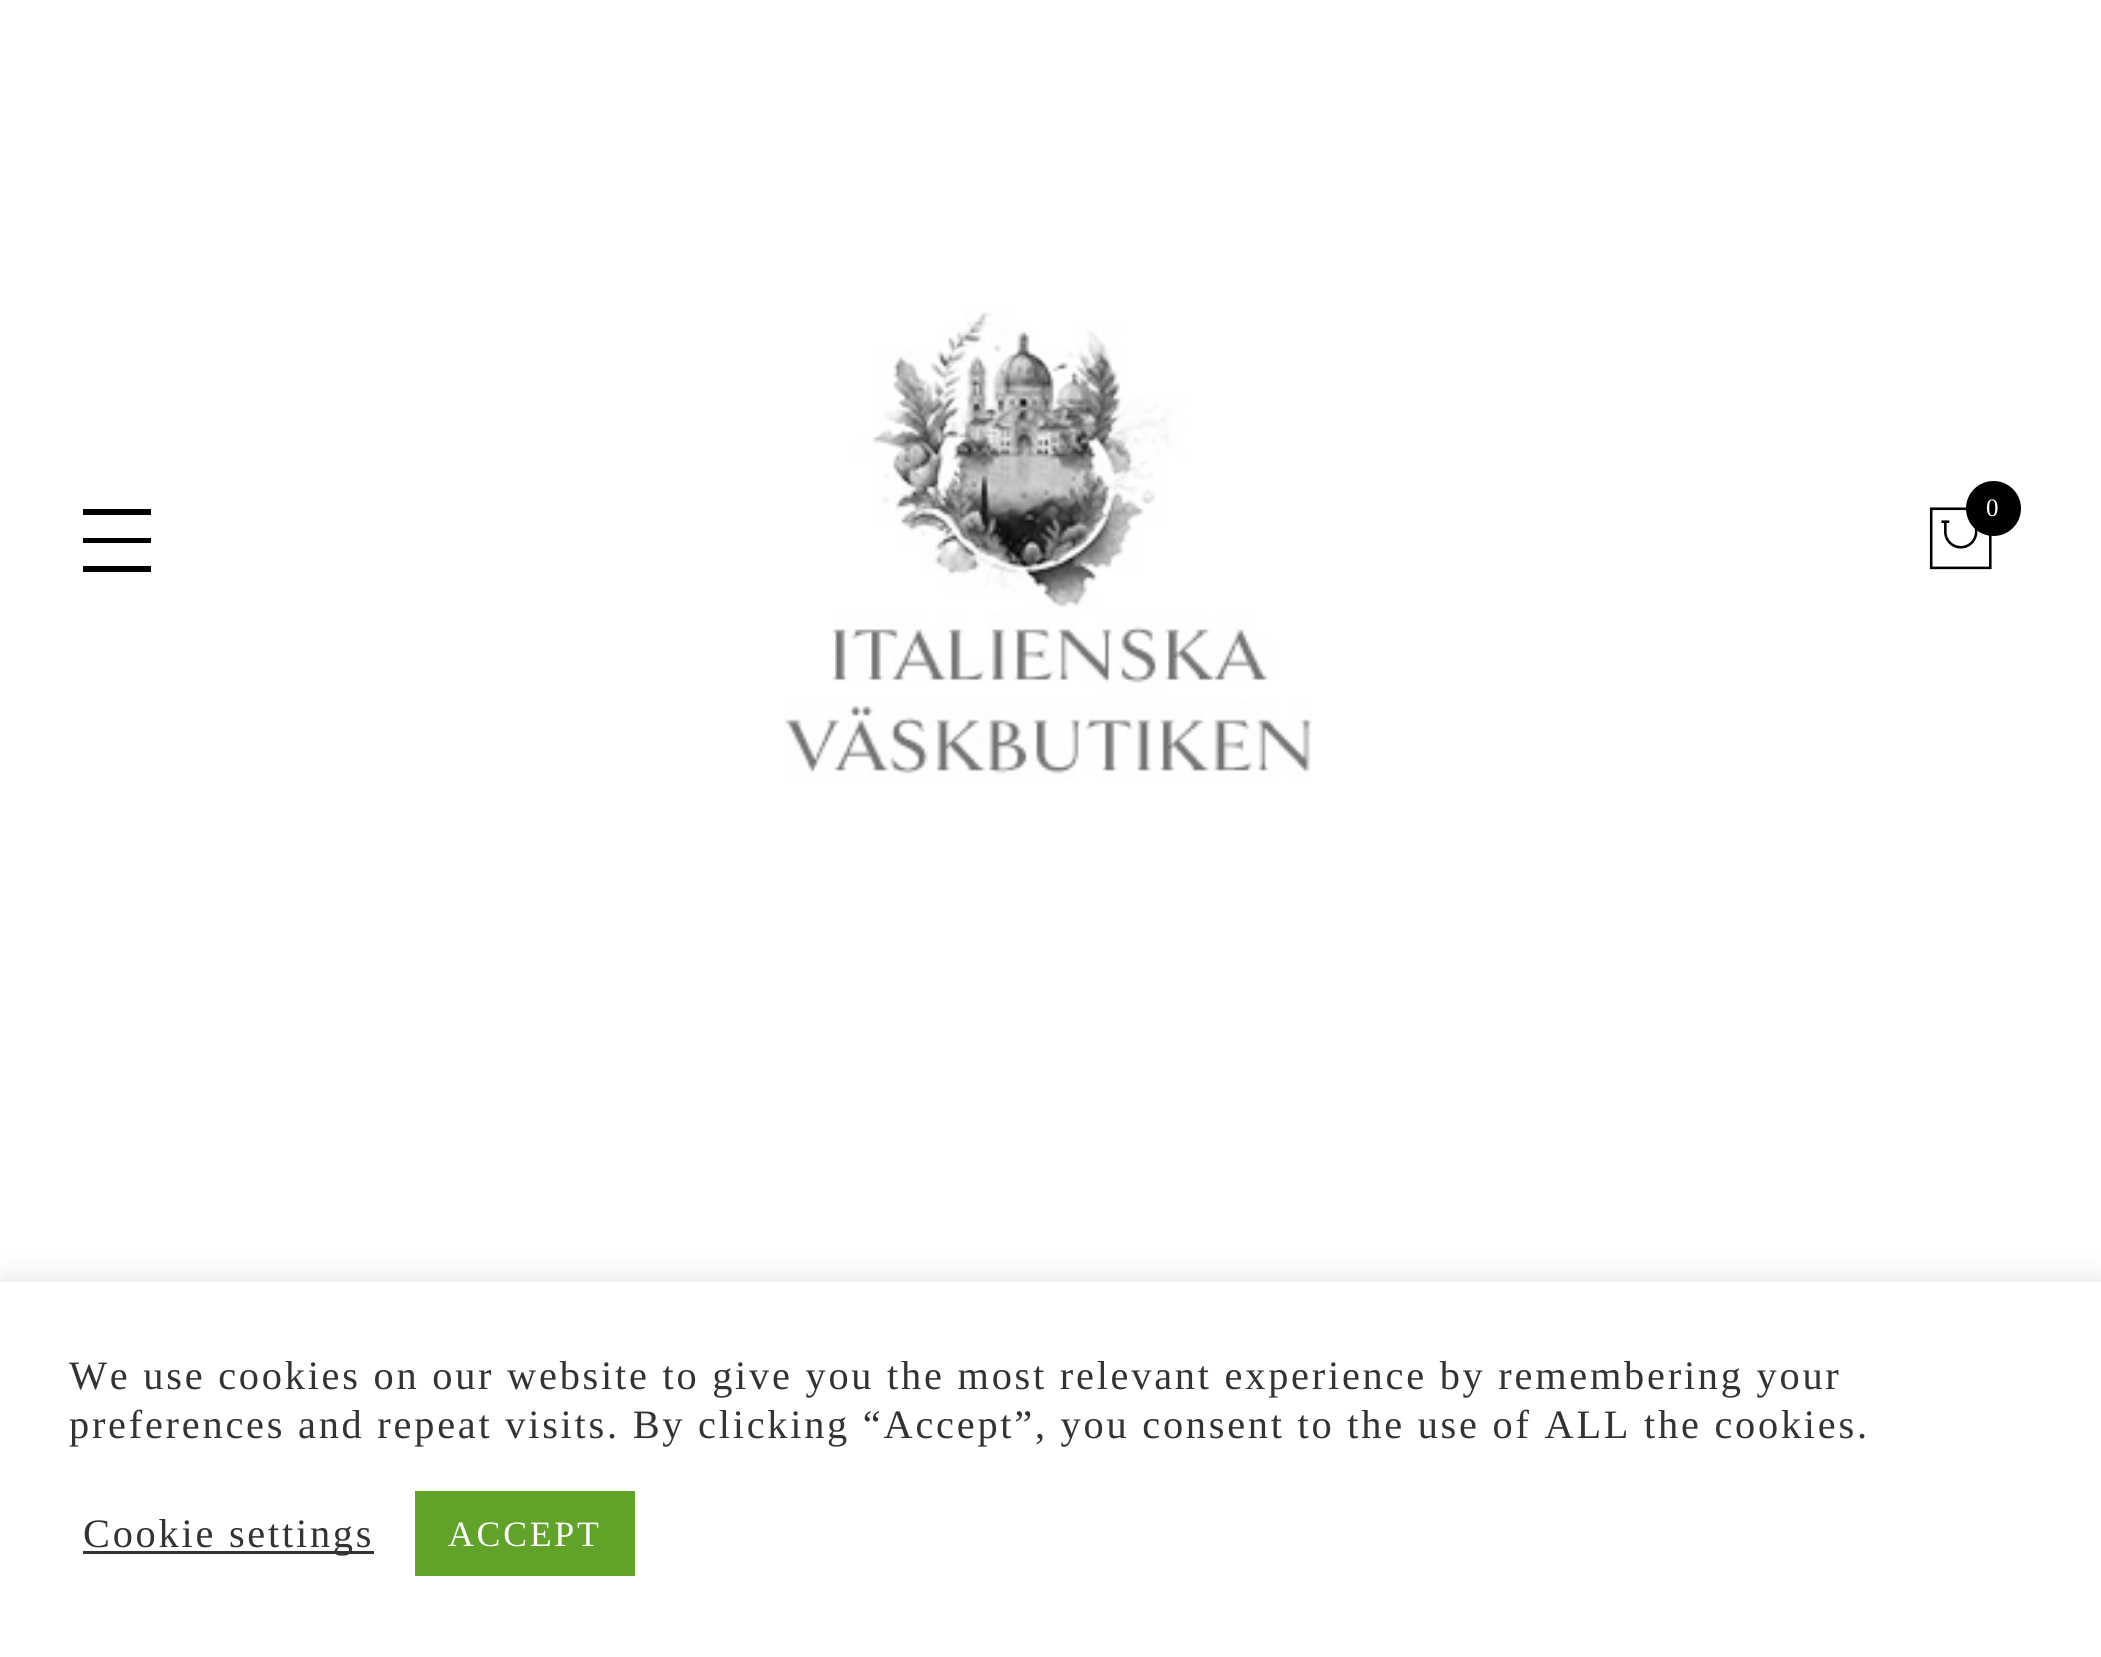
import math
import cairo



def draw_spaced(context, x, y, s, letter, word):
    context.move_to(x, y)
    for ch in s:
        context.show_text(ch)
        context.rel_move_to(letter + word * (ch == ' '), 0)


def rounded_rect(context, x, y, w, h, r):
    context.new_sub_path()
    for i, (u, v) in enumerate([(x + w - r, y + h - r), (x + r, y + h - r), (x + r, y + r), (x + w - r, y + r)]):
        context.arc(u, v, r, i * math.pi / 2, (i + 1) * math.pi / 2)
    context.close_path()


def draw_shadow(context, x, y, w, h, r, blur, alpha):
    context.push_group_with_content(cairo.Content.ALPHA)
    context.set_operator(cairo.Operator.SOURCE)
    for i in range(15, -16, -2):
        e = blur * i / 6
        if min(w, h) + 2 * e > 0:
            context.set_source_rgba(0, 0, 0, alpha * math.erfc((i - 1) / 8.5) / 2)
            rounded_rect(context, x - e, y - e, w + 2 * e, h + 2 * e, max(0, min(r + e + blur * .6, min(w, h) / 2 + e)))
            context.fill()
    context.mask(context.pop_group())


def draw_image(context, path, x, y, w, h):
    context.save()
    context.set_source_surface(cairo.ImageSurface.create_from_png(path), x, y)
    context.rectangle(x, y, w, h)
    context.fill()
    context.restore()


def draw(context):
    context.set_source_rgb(1, 1, 1)
    context.paint()
    context.set_source_rgb(0, 0, 0)
    context.rectangle(83, 509, 68, 6)
    context.fill()
    context.rectangle(83, 538, 68, 5)
    context.fill()
    context.rectangle(83, 566, 68, 6)
    context.fill()
    draw_image(context, "images/1.png", 784, 311, 528, 472)
    draw_image(context, "images/2.png", 1929, 507, 63, 63)
    context.arc(1993.5, 508.5, 27.5, 0, 2 * math.pi)
    context.fill()
    context.set_source_rgb(172 / 255, 171 / 255, 171 / 255)
    draw_shadow(context, 0, 1279, 2101, 377, 0, 14, 0.3)
    context.set_source_rgb(1, 1, 1)
    context.rectangle(0, 1282, 2101, 375)
    context.fill()
    context.set_source_rgb(51 / 255, 51 / 255, 51 / 255)
    context.rectangle(83, 1551, 291, 3)
    context.fill()
    context.set_source_rgb(97 / 255, 162 / 255, 41 / 255)
    context.rectangle(415, 1491, 220, 85)
    context.fill()
    context.select_font_face("Liberation Serif")
    context.set_font_size(25)
    context.set_source_rgb(1, 1, 1)
    draw_spaced(context, 1986, 516, "0", 2.75, 0)
    context.set_font_size(40.35)
    context.set_source_rgb(51 / 255, 51 / 255, 51 / 255)
    draw_spaced(context, 69, 1389, "We use cookies on our website to give you the most relevant experience by remembering your", 2.75, 0)
    draw_spaced(context, 69, 1438, "preferences and repeat visits. By clicking “Accept”, you consent to the use of ALL the cookies.", 2.75, 0)
    draw_spaced(context, 83, 1547, "Cookie settings", 2.75, 0)
    context.set_font_size(35.75)
    context.set_source_rgb(1, 1, 1)
    draw_spaced(context, 448, 1546, "ACCEPT", 2.75, 0)


surface = cairo.ImageSurface(cairo.Format.RGB24, 2101, 1657)
context = cairo.Context(surface)
options = cairo.FontOptions()
options.set_hint_metrics(cairo.HintMetrics.OFF)
options.set_hint_style(cairo.HintStyle.NONE)
context.set_font_options(options)
context.set_miter_limit(4)
draw(context)
surface.write_to_png("out.png")
